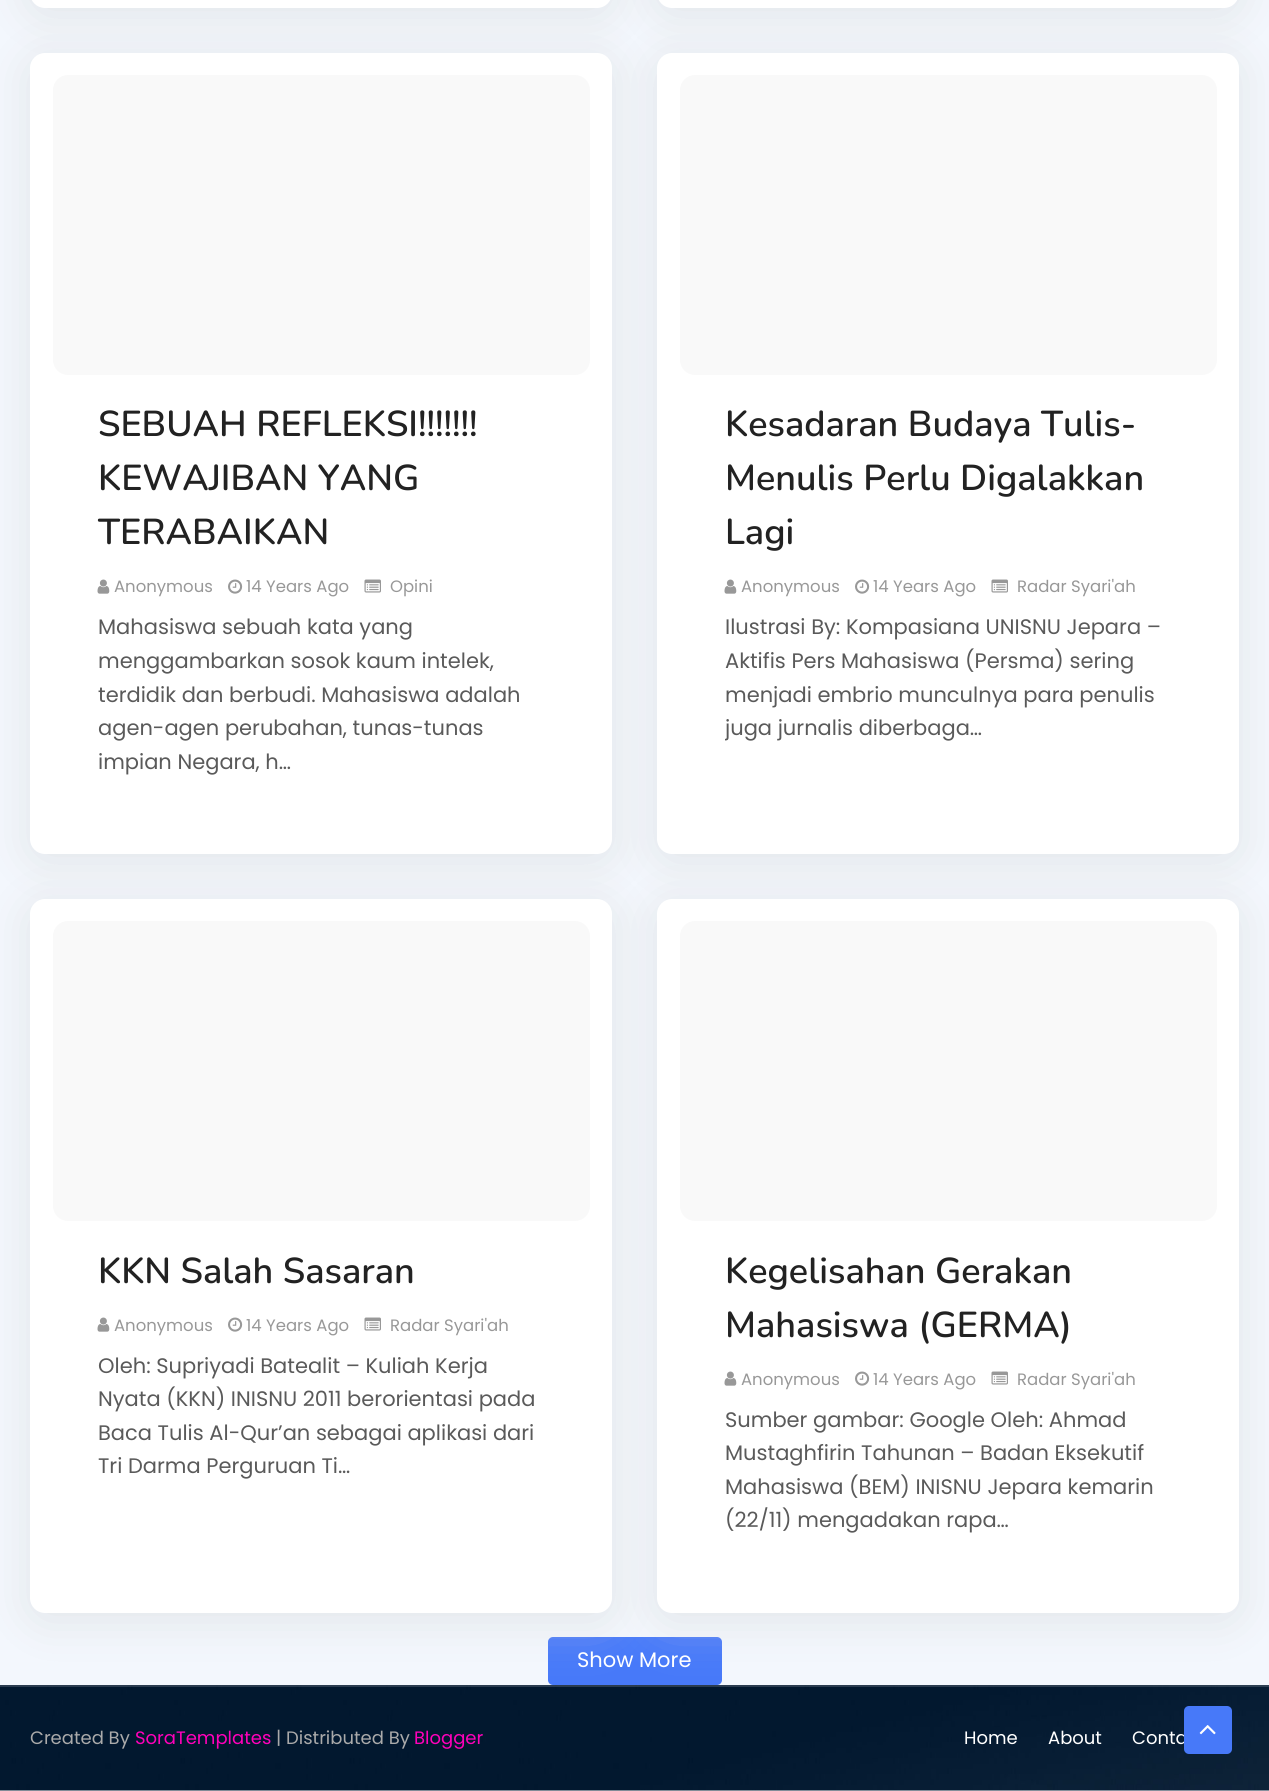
import math
import cairo



def rounded_rect(context, x, y, w, h, r):
    context.new_sub_path()
    for i, (u, v) in enumerate([(x + w - r, y + h - r), (x + r, y + h - r), (x + r, y + r), (x + w - r, y + r)]):
        context.arc(u, v, r, i * math.pi / 2, (i + 1) * math.pi / 2)
    context.close_path()


def draw_shadow(context, x, y, w, h, r, blur, alpha):
    context.push_group_with_content(cairo.Content.ALPHA)
    context.set_operator(cairo.Operator.SOURCE)
    for i in range(15, -16, -2):
        e = blur * i / 6
        if min(w, h) + 2 * e > 0:
            context.set_source_rgba(0, 0, 0, alpha * math.erfc((i - 1) / 8.5) / 2)
            rounded_rect(context, x - e, y - e, w + 2 * e, h + 2 * e, max(0, min(r + e + blur * .6, min(w, h) / 2 + e)))
            context.fill()
    context.mask(context.pop_group())


def draw_image(context, path, x, y, w, h):
    context.save()
    context.set_source_surface(cairo.ImageSurface.create_from_png(path), x, y)
    context.rectangle(x, y, w, h)
    context.fill()
    context.restore()


def draw(context):
    context.set_source_rgb(1, 1, 1)
    context.paint()
    context.set_source_rgb(243 / 255, 247 / 255, 253 / 255)
    context.rectangle(0, 0, 1269, 1685)
    context.fill()
    context.set_source_rgb(214 / 255, 215 / 255, 216 / 255)
    draw_shadow(context, 30, -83, 582, 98, 15, 22.5, 0.57)
    context.set_source_rgb(1, 1, 1)
    rounded_rect(context, 30, -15, 582, 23, 15)
    context.fill()
    context.set_source_rgb(214 / 255, 215 / 255, 216 / 255)
    draw_shadow(context, 657, -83, 582, 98, 15, 22.5, 0.57)
    context.set_source_rgb(1, 1, 1)
    rounded_rect(context, 657, -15, 582, 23, 15)
    context.fill()
    context.set_source_rgb(214 / 255, 215 / 255, 216 / 255)
    draw_shadow(context, 30, 60, 582, 801, 15, 22.5, 0.57)
    context.set_source_rgb(1, 1, 1)
    rounded_rect(context, 30, 53, 582, 801, 15)
    context.fill()
    context.set_source_rgb(214 / 255, 215 / 255, 216 / 255)
    draw_shadow(context, 657, 60, 582, 801, 15, 22.5, 0.57)
    context.set_source_rgb(249 / 255, 249 / 255, 249 / 255)
    rounded_rect(context, 53, 75, 537, 300, 15)
    context.fill()
    draw_image(context, "images/1.png", 97, 579, 13, 15)
    draw_image(context, "images/2.png", 228, 579, 15, 15)
    draw_image(context, "images/3.png", 364, 579, 17, 14)
    context.set_source_rgb(1, 1, 1)
    rounded_rect(context, 657, 53, 582, 801, 15)
    context.fill()
    context.set_source_rgb(249 / 255, 249 / 255, 249 / 255)
    rounded_rect(context, 680, 75, 537, 300, 15)
    context.fill()
    draw_image(context, "images/1.png", 724, 579, 13, 15)
    draw_image(context, "images/2.png", 855, 579, 15, 15)
    draw_image(context, "images/3.png", 991, 579, 17, 14)
    context.set_source_rgb(71 / 255, 121 / 255, 249 / 255)
    rounded_rect(context, 548, 1637, 174, 48, 5)
    context.fill()
    draw_image(context, "images/4.png", 0, 1685, 1269, 106)
    context.set_source_rgb(214 / 255, 215 / 255, 216 / 255)
    draw_shadow(context, 30, 906, 582, 714, 15, 22.5, 0.57)
    context.set_source_rgb(1, 1, 1)
    rounded_rect(context, 30, 899, 582, 714, 15)
    context.fill()
    context.set_source_rgb(214 / 255, 215 / 255, 216 / 255)
    draw_shadow(context, 657, 906, 582, 714, 15, 22.5, 0.57)
    context.set_source_rgb(249 / 255, 249 / 255, 249 / 255)
    rounded_rect(context, 53, 921, 537, 300, 15)
    context.fill()
    draw_image(context, "images/1.png", 97, 1317, 13, 15)
    draw_image(context, "images/2.png", 228, 1317, 15, 15)
    draw_image(context, "images/3.png", 364, 1317, 17, 14)
    context.set_source_rgb(1, 1, 1)
    rounded_rect(context, 657, 899, 582, 714, 15)
    context.fill()
    context.set_source_rgb(249 / 255, 249 / 255, 249 / 255)
    rounded_rect(context, 680, 921, 537, 300, 15)
    context.fill()
    draw_image(context, "images/1.png", 724, 1371, 13, 15)
    draw_image(context, "images/2.png", 855, 1371, 15, 15)
    draw_image(context, "images/3.png", 991, 1371, 17, 14)
    context.set_source_rgba(1, 1, 1, 0.16)
    context.rectangle(0, 1685, 1269, 2)
    context.fill()
    context.select_font_face("Nunito SemiBold")
    context.set_font_size(36)
    context.set_source_rgb(34 / 255, 34 / 255, 34 / 255)
    context.move_to(98, 436)
    context.show_text("SEBUAH REFLEKSI!!!!!!!")
    context.move_to(98, 490)
    context.show_text("KEWAJIBAN YANG")
    context.move_to(98, 544)
    context.show_text("TERABAIKAN")
    context.select_font_face("Poppins")
    context.set_font_size(16.5)
    context.set_source_rgb(152 / 255, 152 / 255, 152 / 255)
    context.move_to(114, 592)
    context.show_text("Anonymous")
    context.move_to(246, 592)
    context.show_text("14 Years Ago")
    context.move_to(390, 592)
    context.show_text("Opini")
    context.set_font_size(21)
    context.set_source_rgb(90 / 255, 90 / 255, 90 / 255)
    context.move_to(98, 634)
    context.show_text("Mahasiswa sebuah kata yang")
    context.move_to(98, 668)
    context.show_text("menggambarkan sosok kaum intelek,")
    context.move_to(98, 702)
    context.show_text("terdidik dan berbudi. Mahasiswa adalah")
    context.move_to(98, 735)
    context.show_text("agen-agen perubahan, tunas-tunas")
    context.move_to(98, 769)
    context.show_text("impian Negara, h…")
    context.select_font_face("Nunito SemiBold")
    context.set_font_size(36)
    context.set_source_rgb(34 / 255, 34 / 255, 34 / 255)
    context.move_to(725, 436)
    context.show_text("Kesadaran Budaya Tulis-")
    context.move_to(725, 490)
    context.show_text("Menulis Perlu Digalakkan")
    context.move_to(725, 544)
    context.show_text("Lagi")
    context.select_font_face("Poppins")
    context.set_font_size(16.5)
    context.set_source_rgb(152 / 255, 152 / 255, 152 / 255)
    context.move_to(741, 592)
    context.show_text("Anonymous")
    context.move_to(873, 592)
    context.show_text("14 Years Ago")
    context.move_to(1017, 592)
    context.show_text("Radar Syari'ah")
    context.set_font_size(21)
    context.set_source_rgb(90 / 255, 90 / 255, 90 / 255)
    context.move_to(725, 634)
    context.show_text("Ilustrasi By: Kompasiana UNISNU Jepara –")
    context.move_to(725, 668)
    context.show_text("Aktifis Pers Mahasiswa (Persma) sering")
    context.move_to(725, 702)
    context.show_text("menjadi embrio munculnya para penulis")
    context.save()
    context.rectangle(725, 611, 447, 135)
    context.clip()
    context.move_to(725, 735)
    context.show_text("juga jurnalis diberbaga…")
    context.restore()
    context.select_font_face("Nunito SemiBold")
    context.set_font_size(36)
    context.set_source_rgb(34 / 255, 34 / 255, 34 / 255)
    context.move_to(98, 1283)
    context.show_text("KKN Salah Sasaran")
    context.select_font_face("Poppins")
    context.set_font_size(16.5)
    context.set_source_rgb(152 / 255, 152 / 255, 152 / 255)
    context.move_to(114, 1331)
    context.show_text("Anonymous")
    context.move_to(246, 1331)
    context.show_text("14 Years Ago")
    context.move_to(390, 1331)
    context.show_text("Radar Syari'ah")
    context.set_font_size(21)
    context.set_source_rgb(90 / 255, 90 / 255, 90 / 255)
    context.move_to(98, 1373)
    context.show_text("Oleh: Supriyadi Batealit – Kuliah Kerja")
    context.move_to(98, 1406)
    context.show_text("Nyata (KKN) INISNU 2011 berorientasi pada")
    context.move_to(98, 1440)
    context.show_text("Baca Tulis Al-Qur’an sebagai aplikasi dari")
    context.move_to(98, 1473)
    context.show_text("Tri Darma Perguruan Ti…")
    context.select_font_face("Nunito SemiBold")
    context.set_font_size(36)
    context.set_source_rgb(34 / 255, 34 / 255, 34 / 255)
    context.move_to(725, 1283)
    context.show_text("Kegelisahan Gerakan")
    context.move_to(725, 1337)
    context.show_text("Mahasiswa (GERMA)")
    context.select_font_face("Poppins")
    context.set_font_size(16.5)
    context.set_source_rgb(152 / 255, 152 / 255, 152 / 255)
    context.move_to(741, 1385)
    context.show_text("Anonymous")
    context.move_to(873, 1385)
    context.show_text("14 Years Ago")
    context.move_to(1017, 1385)
    context.show_text("Radar Syari'ah")
    context.set_font_size(21)
    context.set_source_rgb(90 / 255, 90 / 255, 90 / 255)
    context.move_to(725, 1427)
    context.show_text("Sumber gambar: Google Oleh: Ahmad")
    context.move_to(725, 1460)
    context.show_text("Mustaghfirin Tahunan – Badan Eksekutif")
    context.move_to(725, 1494)
    context.show_text("Mahasiswa (BEM) INISNU Jepara kemarin")
    context.move_to(725, 1527)
    context.show_text("(22/11) mengadakan rapa…")
    context.set_source_rgb(1, 1, 1)
    context.move_to(577, 1667)
    context.show_text("Show More")
    context.set_font_size(18)
    context.set_source_rgb(170 / 255, 170 / 255, 170 / 255)
    context.move_to(30, 1744)
    context.show_text("Created By")
    context.set_source_rgb(1, 0, 186 / 255)
    context.move_to(135, 1744)
    context.show_text("SoraTemplates")
    context.set_source_rgb(170 / 255, 170 / 255, 170 / 255)
    context.move_to(276, 1744)
    context.show_text("| Distributed By")
    context.set_source_rgb(1, 0, 186 / 255)
    context.move_to(414, 1744)
    context.show_text("Blogger")
    context.set_source_rgb(1, 1, 1)
    context.move_to(964, 1744)
    context.show_text("Home")
    context.move_to(1048, 1744)
    context.show_text("About")
    context.move_to(1132, 1744)
    context.show_text("Conta")
    context.set_source_rgb(71 / 255, 121 / 255, 249 / 255)
    rounded_rect(context, 1184, 1706, 48, 48, 5)
    context.fill()
    draw_image(context, "images/5.png", 1199, 1725, 17, 10)


surface = cairo.ImageSurface(cairo.Format.RGB24, 1269, 1791)
context = cairo.Context(surface)
options = cairo.FontOptions()
options.set_hint_metrics(cairo.HintMetrics.OFF)
options.set_hint_style(cairo.HintStyle.NONE)
context.set_font_options(options)
context.set_miter_limit(4)
draw(context)
surface.write_to_png("out.png")
